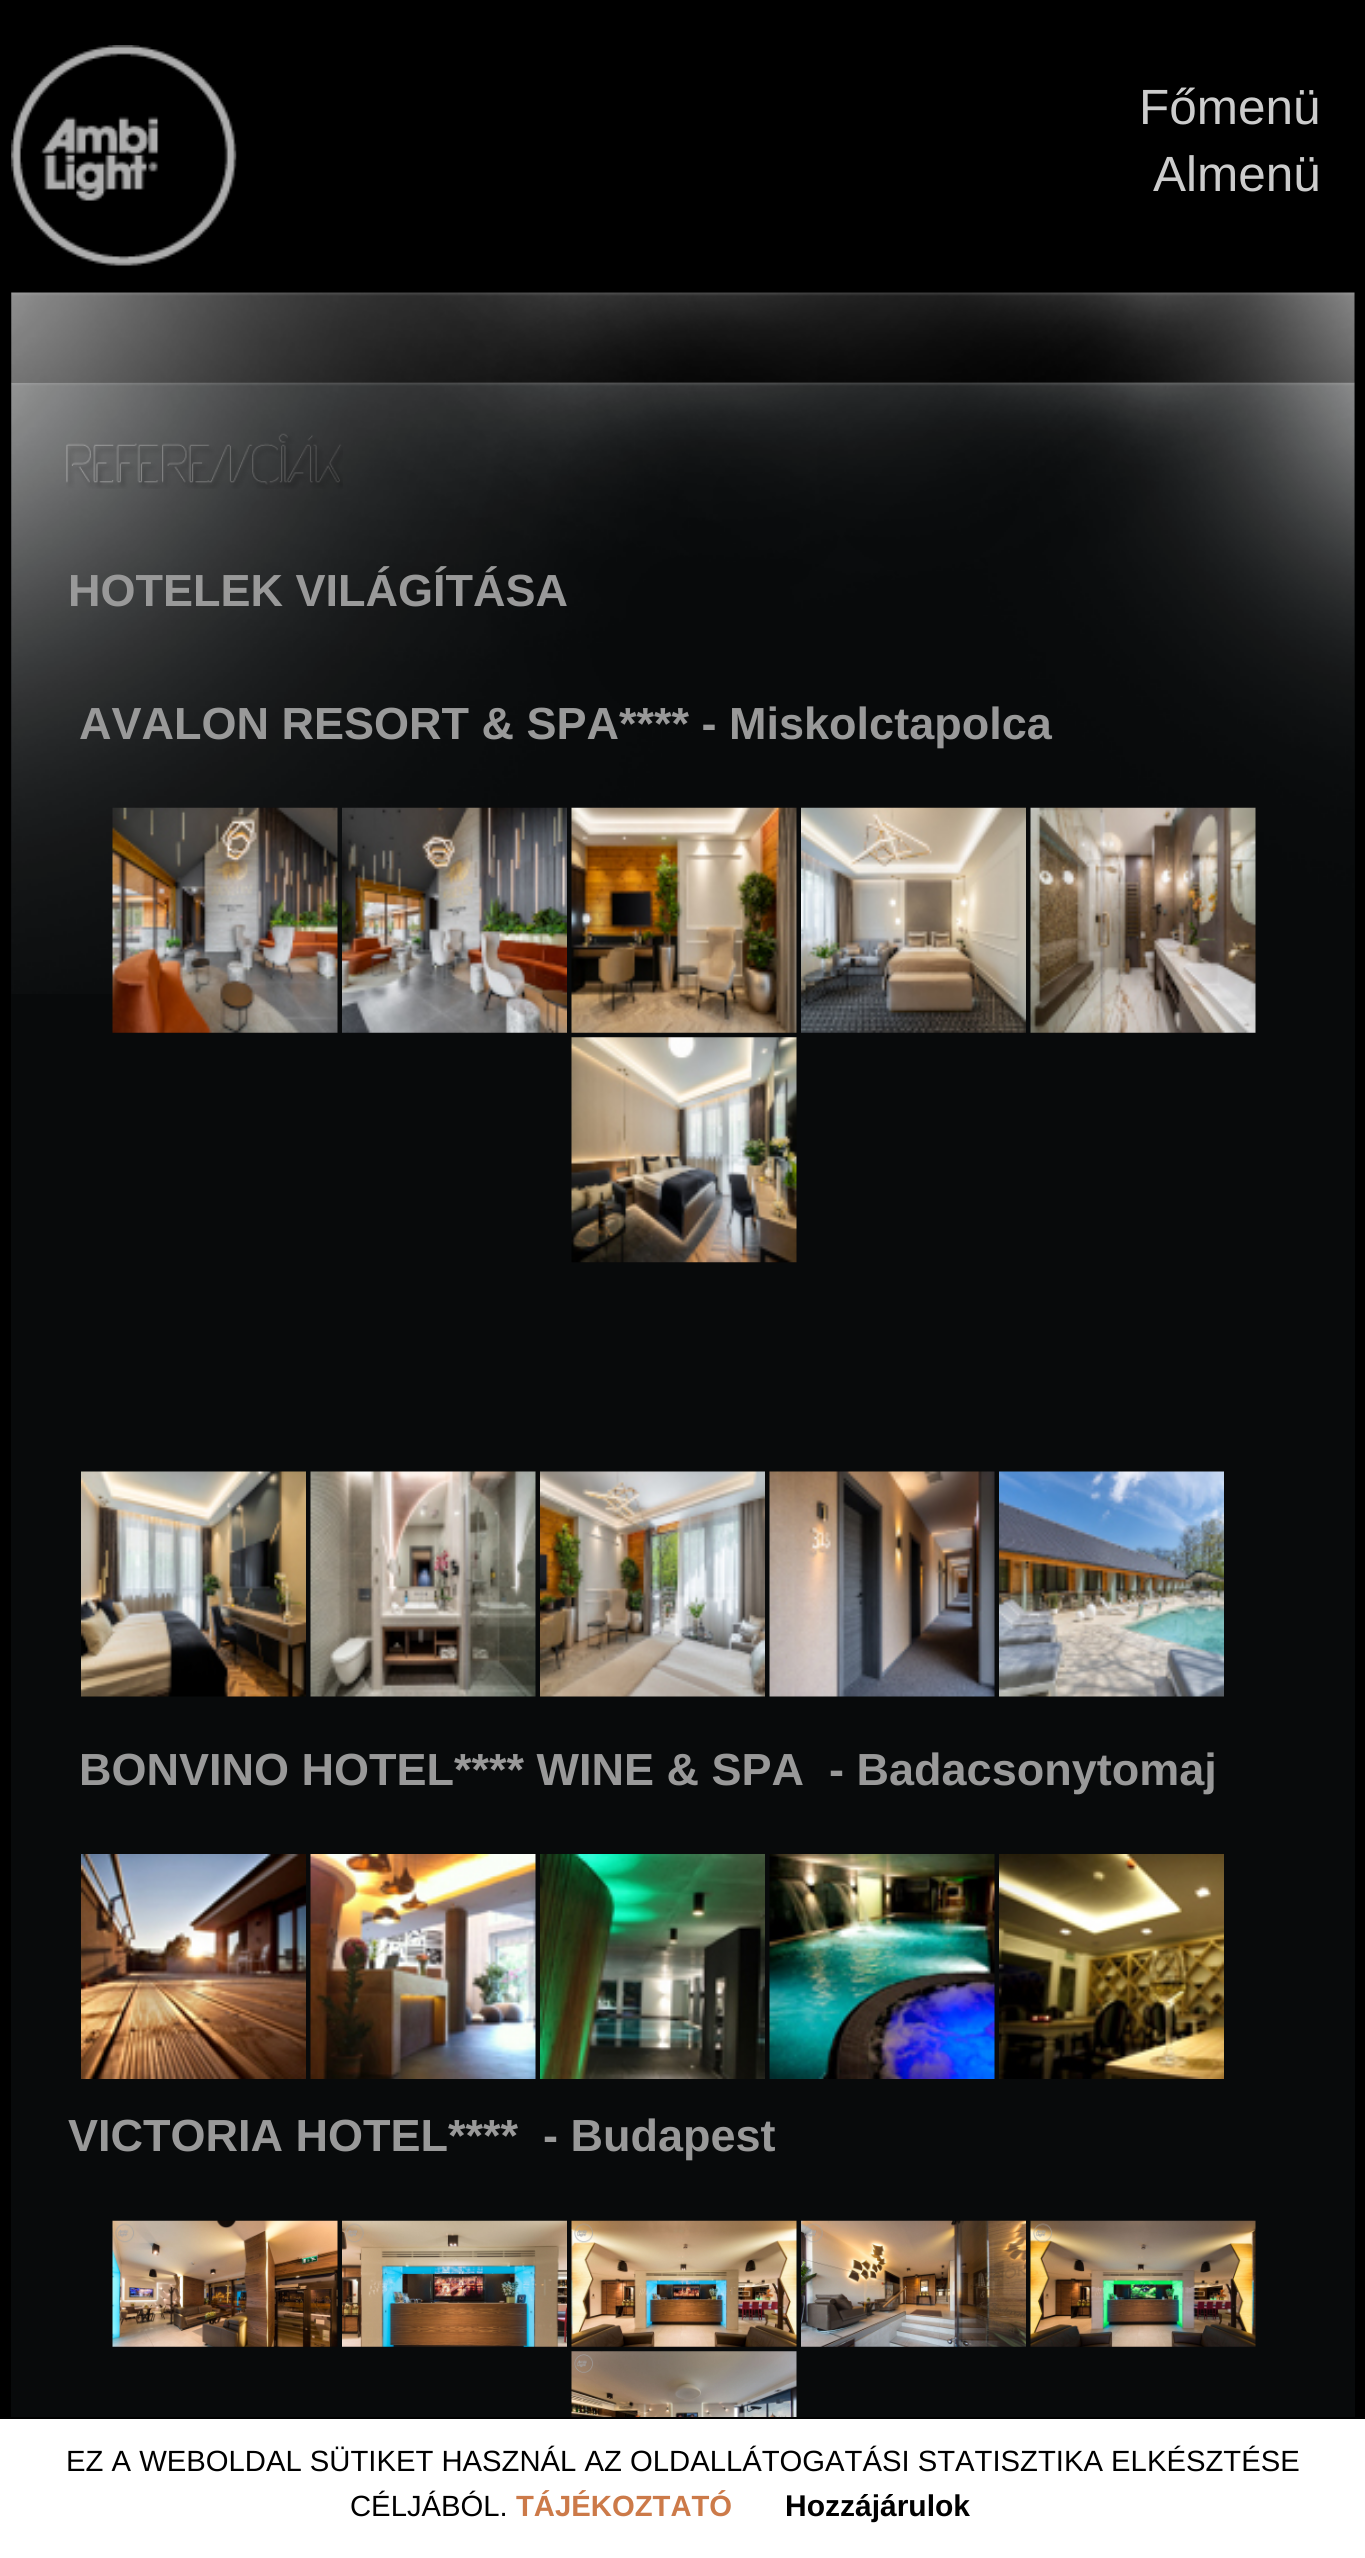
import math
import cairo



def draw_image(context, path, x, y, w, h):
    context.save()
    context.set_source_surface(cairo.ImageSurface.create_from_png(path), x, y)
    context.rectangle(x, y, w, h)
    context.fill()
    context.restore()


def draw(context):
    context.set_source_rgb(0, 0, 0)
    context.paint()
    draw_image(context, "images/1.png", 11, 45, 226, 221)
    draw_image(context, "images/2.png", 11, 292, 1344, 91)
    context.set_source_rgb(8 / 255, 10 / 255, 11 / 255)
    context.rectangle(11, 383, 1344, 2034)
    context.fill()
    draw_image(context, "images/3.png", 11, 382, 1344, 612)
    draw_image(context, "images/4.png", 66, 433, 277, 56)
    draw_image(context, "images/5.png", 112, 807, 226, 226)
    draw_image(context, "images/6.png", 342, 807, 225, 226)
    draw_image(context, "images/7.png", 571, 807, 226, 226)
    draw_image(context, "images/8.png", 801, 807, 225, 226)
    draw_image(context, "images/9.png", 1030, 807, 226, 226)
    draw_image(context, "images/10.png", 571, 1037, 226, 226)
    draw_image(context, "images/11.png", 81, 1471, 225, 226)
    draw_image(context, "images/12.png", 310, 1471, 226, 226)
    draw_image(context, "images/13.png", 540, 1471, 225, 226)
    draw_image(context, "images/14.png", 769, 1471, 226, 226)
    draw_image(context, "images/15.png", 999, 1471, 225, 226)
    draw_image(context, "images/16.png", 81, 1854, 225, 225)
    draw_image(context, "images/17.png", 310, 1854, 226, 225)
    draw_image(context, "images/18.png", 540, 1854, 225, 225)
    draw_image(context, "images/19.png", 769, 1854, 226, 225)
    draw_image(context, "images/20.png", 999, 1854, 225, 225)
    draw_image(context, "images/21.png", 112, 2220, 226, 127)
    draw_image(context, "images/22.png", 342, 2220, 225, 127)
    draw_image(context, "images/23.png", 571, 2220, 226, 127)
    draw_image(context, "images/24.png", 801, 2220, 225, 127)
    draw_image(context, "images/25.png", 1030, 2220, 226, 127)
    draw_image(context, "images/26.png", 571, 2351, 226, 66)
    context.set_source_rgb(1, 1, 1)
    context.rectangle(0, 2419, 1365, 139)
    context.fill()
    context.select_font_face("Liberation Sans")
    context.set_font_size(49.5)
    context.set_source_rgb(204 / 255, 204 / 255, 204 / 255)
    context.move_to(1139, 124)
    context.show_text("Főmenü")
    context.move_to(1153, 191)
    context.show_text("Almenü")
    context.select_font_face("Liberation Sans", cairo.FontSlant.NORMAL, cairo.FontWeight.BOLD)
    context.set_font_size(45)
    context.set_source_rgb(153 / 255, 153 / 255, 153 / 255)
    context.move_to(68, 606)
    context.show_text("HOTELEK VILÁGÍTÁSA")
    context.move_to(79, 739)
    context.show_text("AVALON RESORT & SPA**** - Miskolctapolca")
    context.move_to(79, 1785)
    context.show_text("BONVINO HOTEL**** WINE & SPA  - Badacsonytomaj")
    context.move_to(68, 2151)
    context.show_text("VICTORIA HOTEL****  - Budapest")
    context.select_font_face("Liberation Sans")
    context.set_font_size(29.25)
    context.set_source_rgb(0, 0, 0)
    context.move_to(66, 2471)
    context.show_text("EZ A WEBOLDAL SÜTIKET HASZNÁL AZ OLDALLÁTOGATÁSI STATISZTIKA ELKÉSZTÉSE")
    context.move_to(350, 2516)
    context.show_text("CÉLJÁBÓL.")
    context.select_font_face("Liberation Sans", cairo.FontSlant.NORMAL, cairo.FontWeight.BOLD)
    context.set_source_rgb(204 / 255, 122 / 255, 73 / 255)
    context.move_to(516, 2516)
    context.show_text("TÁJÉKOZTATÓ")
    context.set_font_size(30)
    context.set_source_rgb(0, 0, 0)
    context.move_to(785, 2516)
    context.show_text("Hozzájárulok")


surface = cairo.ImageSurface(cairo.Format.RGB24, 1365, 2558)
context = cairo.Context(surface)
options = cairo.FontOptions()
options.set_hint_metrics(cairo.HintMetrics.OFF)
options.set_hint_style(cairo.HintStyle.NONE)
context.set_font_options(options)
context.set_miter_limit(4)
draw(context)
surface.write_to_png("out.png")
